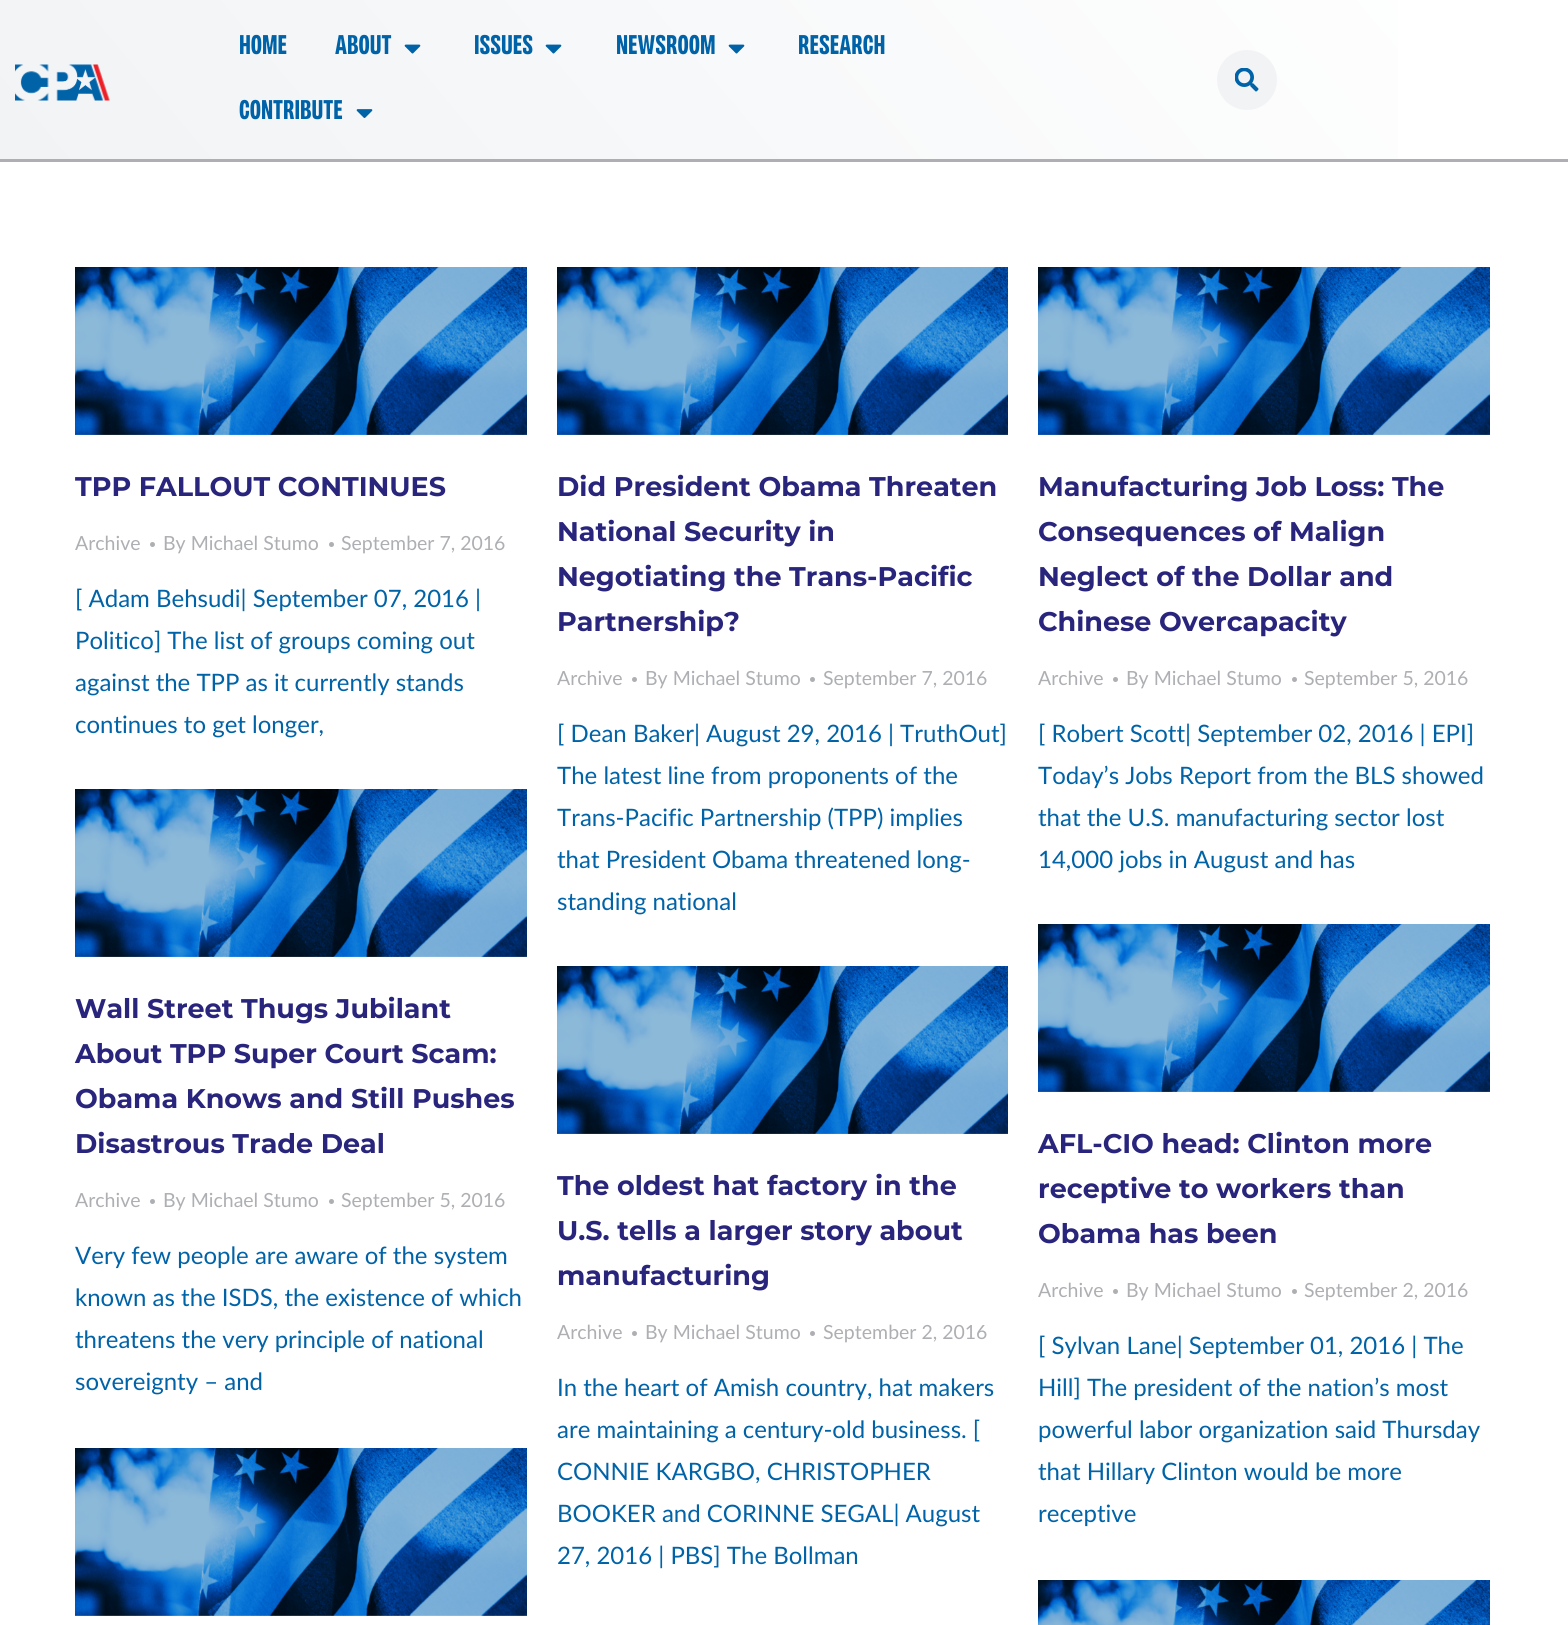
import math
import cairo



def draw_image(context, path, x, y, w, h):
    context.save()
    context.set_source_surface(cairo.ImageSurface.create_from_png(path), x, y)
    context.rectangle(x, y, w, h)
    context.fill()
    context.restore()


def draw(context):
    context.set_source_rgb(1, 1, 1)
    context.paint()
    context.set_source_rgb(173 / 255, 175 / 255, 179 / 255)
    context.rectangle(0, 159, 1568, 3)
    context.fill()
    gradient = cairo.LinearGradient(1284, -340, 285, 499)
    gradient.add_color_stop_rgba(0, 1, 1, 1, 1)
    gradient.add_color_stop_rgba(1, 241 / 255, 243 / 255, 245 / 255, 1)
    context.set_source(gradient)
    context.rectangle(0, 0, 1398, 159)
    context.fill()
    draw_image(context, "images/1.png", 15, 64, 95, 37)
    draw_image(context, "images/2.png", 404, 44, 17, 10)
    draw_image(context, "images/3.png", 545, 44, 17, 10)
    draw_image(context, "images/4.png", 728, 44, 17, 10)
    draw_image(context, "images/5.png", 356, 109, 17, 9)
    context.set_source_rgb(241 / 255, 243 / 255, 245 / 255)
    context.arc(1247, 80, 30, 0, 2 * math.pi)
    context.fill()
    draw_image(context, "images/6.png", 1235, 68, 24, 24)
    draw_image(context, "images/7.png", 75, 267, 452, 168)
    context.set_source_rgb(173 / 255, 175 / 255, 179 / 255)
    context.arc(152.5, 544.5, 2.5, 0, 2 * math.pi)
    context.fill()
    context.arc(331.5, 544.5, 2.5, 0, 2 * math.pi)
    context.fill()
    draw_image(context, "images/8.png", 557, 267, 451, 168)
    context.arc(634.5, 679.5, 2.5, 0, 2 * math.pi)
    context.fill()
    context.arc(812.5, 679.5, 2.5, 0, 2 * math.pi)
    context.fill()
    draw_image(context, "images/7.png", 1038, 267, 452, 168)
    context.arc(1115.5, 679.5, 2.5, 0, 2 * math.pi)
    context.fill()
    context.arc(1294.5, 679.5, 2.5, 0, 2 * math.pi)
    context.fill()
    draw_image(context, "images/7.png", 75, 789, 452, 168)
    context.arc(152.5, 1201.5, 2.5, 0, 2 * math.pi)
    context.fill()
    context.arc(331.5, 1201.5, 2.5, 0, 2 * math.pi)
    context.fill()
    draw_image(context, "images/8.png", 557, 966, 451, 168)
    context.arc(634.5, 1333.5, 2.5, 0, 2 * math.pi)
    context.fill()
    context.arc(812.5, 1333.5, 2.5, 0, 2 * math.pi)
    context.fill()
    draw_image(context, "images/7.png", 1038, 924, 452, 168)
    context.arc(1115.5, 1291.5, 2.5, 0, 2 * math.pi)
    context.fill()
    context.arc(1294.5, 1291.5, 2.5, 0, 2 * math.pi)
    context.fill()
    draw_image(context, "images/9.png", 75, 1448, 452, 168)
    draw_image(context, "images/10.png", 1038, 1580, 452, 45)
    context.select_font_face("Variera", cairo.FontSlant.NORMAL, cairo.FontWeight.BOLD)
    context.set_font_size(27)
    context.set_source_rgb(0, 99 / 255, 168 / 255)
    context.move_to(239, 54)
    context.show_text("HOME")
    context.move_to(335, 54)
    context.show_text("ABOUT")
    context.move_to(474, 54)
    context.show_text("ISSUES")
    context.move_to(616, 54)
    context.show_text("NEWSROOM")
    context.move_to(798, 54)
    context.show_text("RESEARCH")
    context.move_to(239, 119)
    context.show_text("CONTRIBUTE")
    context.select_font_face("Montserrat", cairo.FontSlant.NORMAL, cairo.FontWeight.BOLD)
    context.set_source_rgb(41 / 255, 37 / 255, 124 / 255)
    context.move_to(75, 496)
    context.show_text("TPP FALLOUT CONTINUES")
    context.select_font_face("Lato")
    context.set_font_size(19.5)
    context.set_source_rgb(173 / 255, 175 / 255, 179 / 255)
    context.move_to(75, 550)
    context.show_text("Archive")
    context.move_to(163, 550)
    context.show_text("By Michael Stumo")
    context.move_to(341, 550)
    context.show_text("September 7, 2016")
    context.set_font_size(24)
    context.set_source_rgb(0, 99 / 255, 168 / 255)
    context.move_to(75, 607)
    context.show_text("[ Adam Behsudi| September 07, 2016 |")
    context.move_to(75, 649)
    context.show_text("Politico] The list of groups coming out")
    context.move_to(75, 691)
    context.show_text("against the TPP as it currently stands")
    context.move_to(75, 733)
    context.show_text("continues to get longer,")
    context.select_font_face("Montserrat", cairo.FontSlant.NORMAL, cairo.FontWeight.BOLD)
    context.set_font_size(27)
    context.set_source_rgb(41 / 255, 37 / 255, 124 / 255)
    context.move_to(557, 496)
    context.show_text("Did President Obama Threaten")
    context.move_to(557, 541)
    context.show_text("National Security in")
    context.move_to(557, 586)
    context.show_text("Negotiating the Trans-Pacific")
    context.move_to(557, 631)
    context.show_text("Partnership?")
    context.select_font_face("Lato")
    context.set_font_size(19.5)
    context.set_source_rgb(173 / 255, 175 / 255, 179 / 255)
    context.move_to(557, 685)
    context.show_text("Archive")
    context.move_to(645, 685)
    context.show_text("By Michael Stumo")
    context.move_to(823, 685)
    context.show_text("September 7, 2016")
    context.set_font_size(24)
    context.set_source_rgb(0, 99 / 255, 168 / 255)
    context.move_to(557, 742)
    context.show_text("[ Dean Baker| August 29, 2016 | TruthOut]")
    context.move_to(557, 784)
    context.show_text("The latest line from proponents of the")
    context.move_to(557, 826)
    context.show_text("Trans-Pacific Partnership (TPP) implies")
    context.move_to(557, 868)
    context.show_text("that President Obama threatened long-")
    context.move_to(557, 910)
    context.show_text("standing national")
    context.select_font_face("Montserrat", cairo.FontSlant.NORMAL, cairo.FontWeight.BOLD)
    context.set_font_size(27)
    context.set_source_rgb(41 / 255, 37 / 255, 124 / 255)
    context.move_to(1038, 496)
    context.show_text("Manufacturing Job Loss: The")
    context.move_to(1038, 541)
    context.show_text("Consequences of Malign")
    context.move_to(1038, 586)
    context.show_text("Neglect of the Dollar and")
    context.move_to(1038, 631)
    context.show_text("Chinese Overcapacity")
    context.select_font_face("Lato")
    context.set_font_size(19.5)
    context.set_source_rgb(173 / 255, 175 / 255, 179 / 255)
    context.move_to(1038, 685)
    context.show_text("Archive")
    context.move_to(1126, 685)
    context.show_text("By Michael Stumo")
    context.move_to(1304, 685)
    context.show_text("September 5, 2016")
    context.set_font_size(24)
    context.set_source_rgb(0, 99 / 255, 168 / 255)
    context.move_to(1038, 742)
    context.show_text("[ Robert Scott| September 02, 2016 | EPI]")
    context.move_to(1038, 784)
    context.show_text("Today’s Jobs Report from the BLS showed")
    context.move_to(1038, 826)
    context.show_text("that the U.S. manufacturing sector lost")
    context.move_to(1038, 868)
    context.show_text("14,000 jobs in August and has")
    context.select_font_face("Montserrat", cairo.FontSlant.NORMAL, cairo.FontWeight.BOLD)
    context.set_font_size(27)
    context.set_source_rgb(41 / 255, 37 / 255, 124 / 255)
    context.move_to(75, 1018)
    context.show_text("Wall Street Thugs Jubilant")
    context.move_to(75, 1063)
    context.show_text("About TPP Super Court Scam:")
    context.move_to(75, 1108)
    context.show_text("Obama Knows and Still Pushes")
    context.move_to(75, 1153)
    context.show_text("Disastrous Trade Deal")
    context.select_font_face("Lato")
    context.set_font_size(19.5)
    context.set_source_rgb(173 / 255, 175 / 255, 179 / 255)
    context.move_to(75, 1207)
    context.show_text("Archive")
    context.move_to(163, 1207)
    context.show_text("By Michael Stumo")
    context.move_to(341, 1207)
    context.show_text("September 5, 2016")
    context.set_font_size(24)
    context.set_source_rgb(0, 99 / 255, 168 / 255)
    context.move_to(75, 1264)
    context.show_text("Very few people are aware of the system")
    context.move_to(75, 1306)
    context.show_text("known as the ISDS, the existence of which")
    context.move_to(75, 1348)
    context.show_text("threatens the very principle of national")
    context.move_to(75, 1390)
    context.show_text("sovereignty – and")
    context.select_font_face("Montserrat", cairo.FontSlant.NORMAL, cairo.FontWeight.BOLD)
    context.set_font_size(27)
    context.set_source_rgb(41 / 255, 37 / 255, 124 / 255)
    context.move_to(557, 1195)
    context.show_text("The oldest hat factory in the")
    context.move_to(557, 1240)
    context.show_text("U.S. tells a larger story about")
    context.move_to(557, 1285)
    context.show_text("manufacturing")
    context.select_font_face("Lato")
    context.set_font_size(19.5)
    context.set_source_rgb(173 / 255, 175 / 255, 179 / 255)
    context.move_to(557, 1339)
    context.show_text("Archive")
    context.move_to(645, 1339)
    context.show_text("By Michael Stumo")
    context.move_to(823, 1339)
    context.show_text("September 2, 2016")
    context.set_font_size(24)
    context.set_source_rgb(0, 99 / 255, 168 / 255)
    context.move_to(557, 1396)
    context.show_text("In the heart of Amish country, hat makers")
    context.move_to(557, 1438)
    context.show_text("are maintaining a century-old business. [")
    context.move_to(557, 1480)
    context.show_text("CONNIE KARGBO, CHRISTOPHER")
    context.move_to(557, 1522)
    context.show_text("BOOKER and CORINNE SEGAL| August")
    context.move_to(557, 1564)
    context.show_text("27, 2016 | PBS] The Bollman")
    context.select_font_face("Montserrat", cairo.FontSlant.NORMAL, cairo.FontWeight.BOLD)
    context.set_font_size(27)
    context.set_source_rgb(41 / 255, 37 / 255, 124 / 255)
    context.move_to(1038, 1153)
    context.show_text("AFL-CIO head: Clinton more")
    context.move_to(1038, 1198)
    context.show_text("receptive to workers than")
    context.move_to(1038, 1243)
    context.show_text("Obama has been")
    context.select_font_face("Lato")
    context.set_font_size(19.5)
    context.set_source_rgb(173 / 255, 175 / 255, 179 / 255)
    context.move_to(1038, 1297)
    context.show_text("Archive")
    context.move_to(1126, 1297)
    context.show_text("By Michael Stumo")
    context.move_to(1304, 1297)
    context.show_text("September 2, 2016")
    context.set_font_size(24)
    context.set_source_rgb(0, 99 / 255, 168 / 255)
    context.move_to(1038, 1354)
    context.show_text("[ Sylvan Lane| September 01, 2016 | The")
    context.move_to(1038, 1396)
    context.show_text("Hill] The president of the nation’s most")
    context.move_to(1038, 1438)
    context.show_text("powerful labor organization said Thursday")
    context.move_to(1038, 1480)
    context.show_text("that Hillary Clinton would be more")
    context.move_to(1038, 1522)
    context.show_text("receptive")


surface = cairo.ImageSurface(cairo.Format.RGB24, 1568, 1625)
context = cairo.Context(surface)
options = cairo.FontOptions()
options.set_hint_metrics(cairo.HintMetrics.OFF)
options.set_hint_style(cairo.HintStyle.NONE)
context.set_font_options(options)
context.set_miter_limit(4)
draw(context)
surface.write_to_png("out.png")
